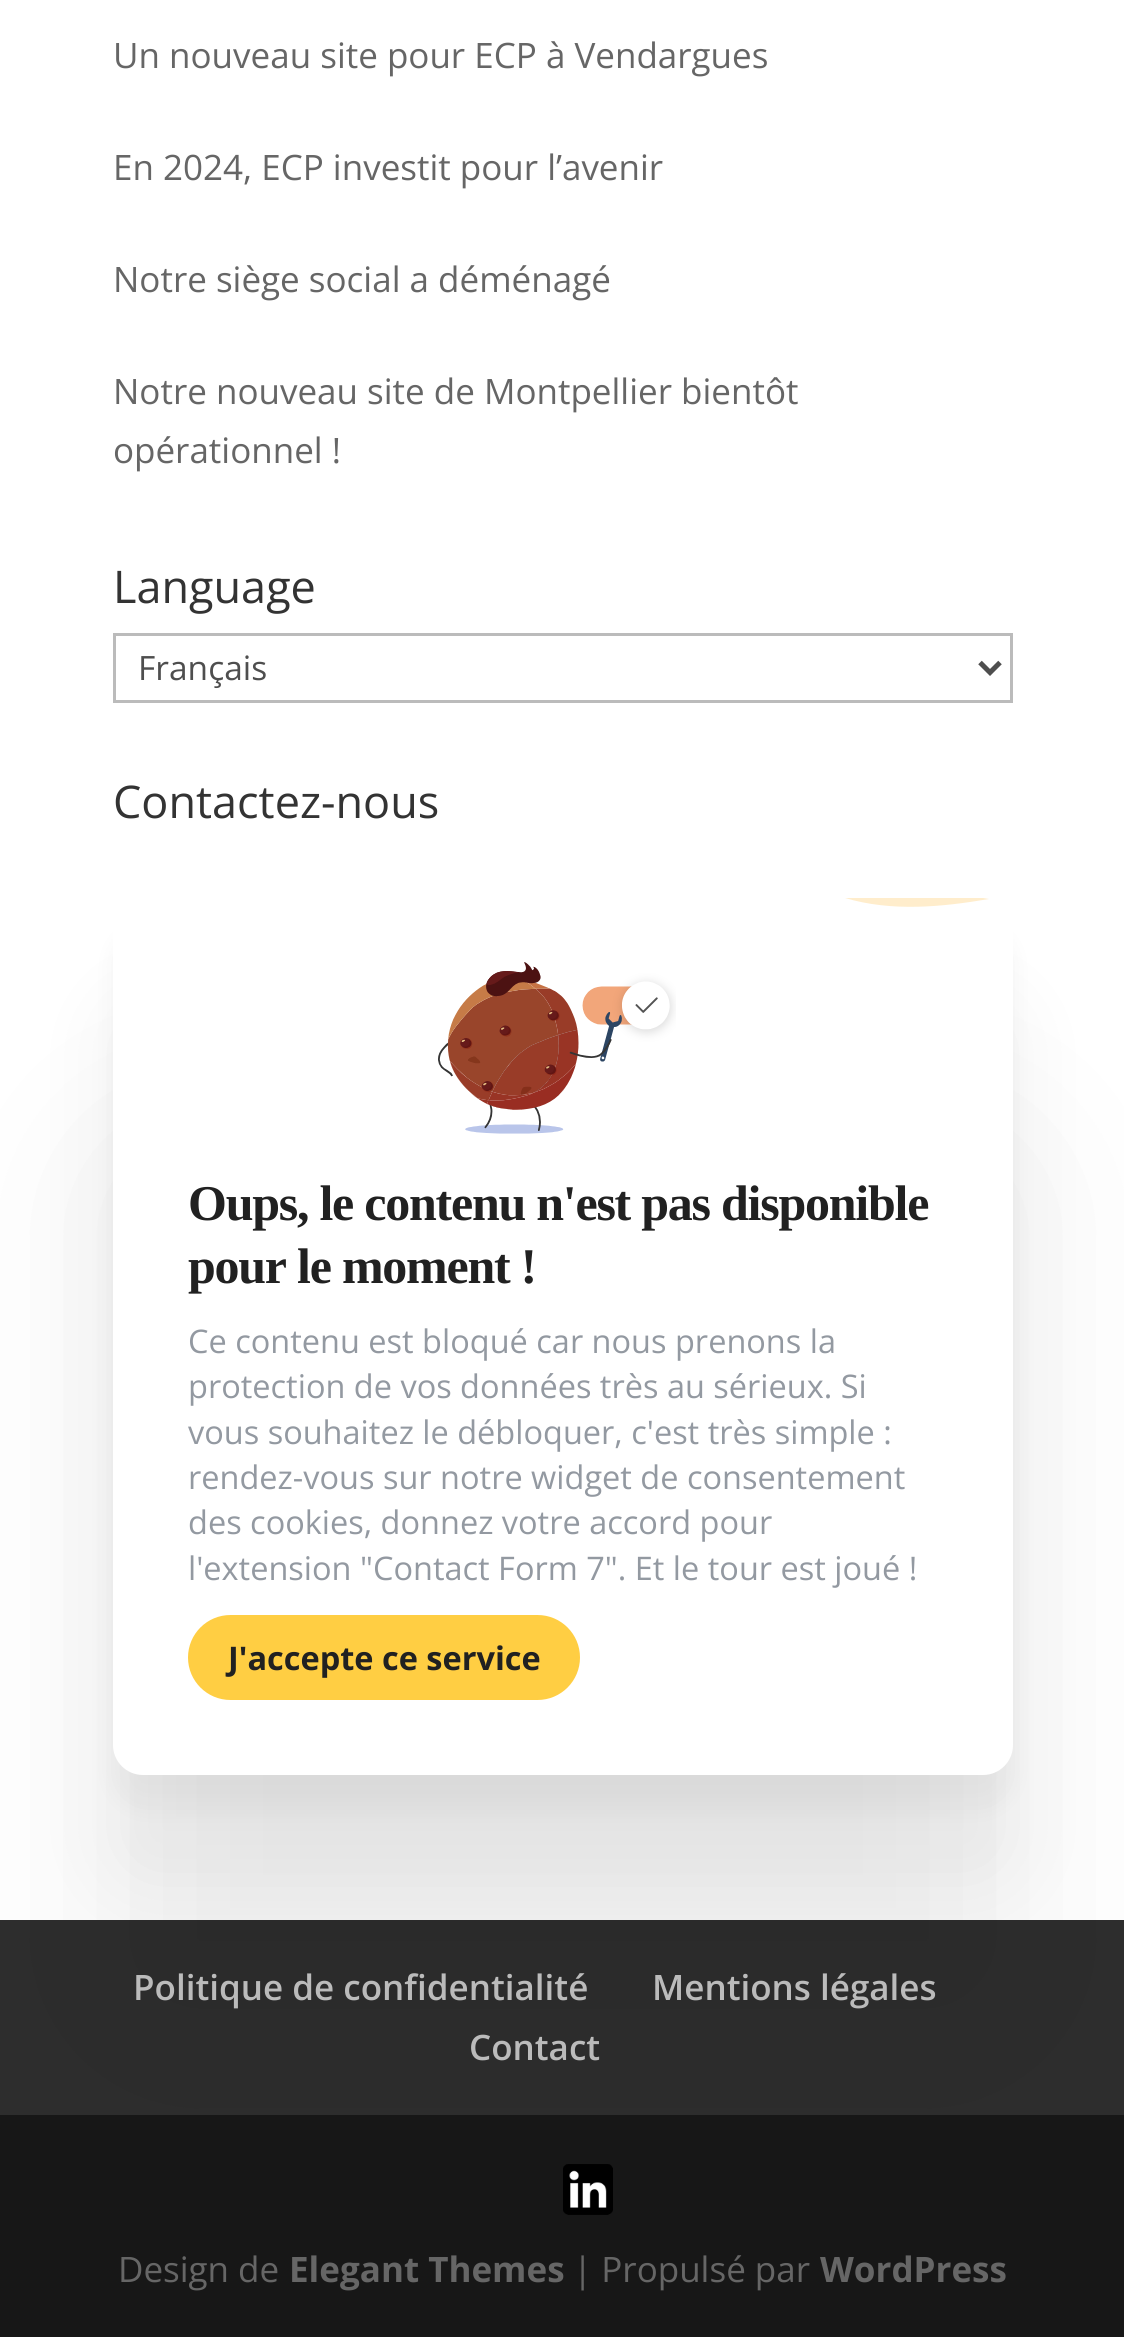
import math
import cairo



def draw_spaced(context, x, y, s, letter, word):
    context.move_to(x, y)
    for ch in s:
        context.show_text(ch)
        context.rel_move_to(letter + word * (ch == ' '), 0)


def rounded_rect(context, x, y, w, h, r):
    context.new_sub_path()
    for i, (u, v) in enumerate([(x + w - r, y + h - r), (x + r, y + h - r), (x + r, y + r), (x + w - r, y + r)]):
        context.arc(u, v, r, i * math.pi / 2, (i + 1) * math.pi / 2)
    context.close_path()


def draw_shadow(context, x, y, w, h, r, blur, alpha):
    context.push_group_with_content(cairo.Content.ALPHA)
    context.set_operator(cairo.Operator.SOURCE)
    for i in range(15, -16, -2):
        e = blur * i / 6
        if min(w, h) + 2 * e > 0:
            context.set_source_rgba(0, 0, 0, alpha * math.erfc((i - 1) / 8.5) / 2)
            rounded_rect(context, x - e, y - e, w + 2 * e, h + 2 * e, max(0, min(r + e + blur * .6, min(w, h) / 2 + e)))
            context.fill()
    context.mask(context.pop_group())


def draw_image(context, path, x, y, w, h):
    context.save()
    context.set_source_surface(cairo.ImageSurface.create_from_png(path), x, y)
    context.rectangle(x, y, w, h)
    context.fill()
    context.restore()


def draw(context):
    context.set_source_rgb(1, 1, 1)
    context.paint()
    context.rectangle(114.5, 634.5, 897, 67)
    context.set_source_rgb(187 / 255, 187 / 255, 187 / 255)
    context.set_line_width(3)
    context.stroke()
    context.new_path()
    context.move_to(980, 662.5)
    context.line_to(990, 672.5)
    context.line_to(1000, 662.5)
    context.set_source_rgb(78 / 255, 78 / 255, 78 / 255)
    context.set_line_width(5)
    context.stroke()
    context.set_source_rgb(45 / 255, 45 / 255, 45 / 255)
    context.rectangle(0, 1920, 1124, 195)
    context.fill()
    context.set_source_rgb(23 / 255, 23 / 255, 23 / 255)
    context.rectangle(0, 2115, 1124, 222)
    context.fill()
    context.set_source_rgb(0, 0, 0)
    draw_shadow(context, 113, 1148, 900, 877, 30, 100, 0.07)
    draw_shadow(context, 113, 1003, 900, 877, 30, 42, 0.05)
    draw_shadow(context, 113, 930, 900, 878, 30, 12.5, 0.04)
    context.set_source_rgb(1, 1, 1)
    rounded_rect(context, 113, 898, 900, 877, 30)
    context.fill()
    context.set_source_rgb(1, 237 / 255, 204 / 255)
    context.new_path()
    context.move_to(989, 899)
    context.line_to(983, 898)
    context.line_to(845, 898)
    context.curve_to(892, 912, 942, 907, 989, 899)
    context.close_path()
    context.fill()
    draw_image(context, "images/1.png", 438, 962, 238, 172)
    context.set_source_rgb(1, 206 / 255, 67 / 255)
    rounded_rect(context, 189.5, 1616.5, 389, 82, 41)
    context.fill_preserve()
    context.set_line_width(3)
    context.stroke()
    draw_image(context, "images/2.png", 563, 2164, 50, 51)
    draw_image(context, "images/3.png", 566, 2164, 44, 51)
    context.select_font_face("Open Sans")
    context.set_font_size(35)
    context.set_source_rgb(102 / 255, 102 / 255, 102 / 255)
    context.move_to(113, 68)
    context.show_text("Un nouveau site pour ECP à Vendargues")
    context.move_to(113, 180)
    context.show_text("En 2024, ECP investit pour l’avenir")
    context.move_to(113, 292)
    context.show_text("Notre siège social a déménagé")
    context.move_to(113, 404)
    context.show_text("Notre nouveau site de Montpellier bientôt")
    context.move_to(113, 463)
    context.show_text("opérationnel !")
    context.set_font_size(45)
    context.set_source_rgb(51 / 255, 51 / 255, 51 / 255)
    context.move_to(113, 603)
    context.show_text("Language")
    context.set_font_size(33.5)
    context.set_source_rgb(78 / 255, 78 / 255, 78 / 255)
    context.move_to(138, 680)
    context.show_text("Français")
    context.set_font_size(45)
    context.set_source_rgb(51 / 255, 51 / 255, 51 / 255)
    context.move_to(113, 818)
    context.show_text("Contactez-nous")
    context.select_font_face("Liberation Serif", cairo.FontSlant.NORMAL, cairo.FontWeight.BOLD)
    context.set_font_size(50)
    context.set_source_rgb(33 / 255, 33 / 255, 33 / 255)
    draw_spaced(context, 188, 1220, "Oups, le contenu n'est pas disponible", -1.25, 0)
    draw_spaced(context, 188, 1283, "pour le moment !", -1.25, 0)
    context.select_font_face("Open Sans")
    context.set_font_size(32.5)
    context.set_source_rgb(147 / 255, 153 / 255, 161 / 255)
    context.move_to(188, 1353)
    context.show_text("Ce contenu est bloqué car nous prenons la")
    context.move_to(188, 1398)
    context.show_text("protection de vos données très au sérieux. Si")
    context.move_to(188, 1444)
    context.show_text("vous souhaitez le débloquer, c'est très simple :")
    context.move_to(188, 1489)
    context.show_text("rendez-vous sur notre widget de consentement")
    context.move_to(188, 1534)
    context.show_text("des cookies, donnez votre accord pour")
    context.move_to(188, 1580)
    context.show_text("l'extension \"Contact Form 7\". Et le tour est joué !")
    context.select_font_face("Open Sans", cairo.FontSlant.NORMAL, cairo.FontWeight.BOLD)
    context.set_source_rgb(33 / 255, 33 / 255, 33 / 255)
    context.move_to(228, 1670)
    context.show_text("J'accepte ce service")
    context.select_font_face("Open Sans SemiBold")
    context.set_font_size(35)
    context.set_source_rgb(187 / 255, 187 / 255, 187 / 255)
    context.move_to(133, 2000)
    context.show_text("Politique de confidentialité")
    context.move_to(652, 2000)
    context.show_text("Mentions légales")
    context.move_to(469, 2060)
    context.show_text("Contact")
    context.select_font_face("Open Sans")
    context.set_source_rgb(102 / 255, 102 / 255, 102 / 255)
    context.move_to(118, 2282)
    context.show_text("Design de")
    context.select_font_face("Open Sans", cairo.FontSlant.NORMAL, cairo.FontWeight.BOLD)
    context.move_to(289, 2282)
    context.show_text("Elegant Themes")
    context.select_font_face("Open Sans")
    context.move_to(573, 2282)
    context.show_text("| Propulsé par")
    context.select_font_face("Open Sans", cairo.FontSlant.NORMAL, cairo.FontWeight.BOLD)
    context.move_to(820, 2282)
    context.show_text("WordPress")


surface = cairo.ImageSurface(cairo.Format.RGB24, 1124, 2337)
context = cairo.Context(surface)
options = cairo.FontOptions()
options.set_hint_metrics(cairo.HintMetrics.OFF)
options.set_hint_style(cairo.HintStyle.NONE)
context.set_font_options(options)
context.set_miter_limit(4)
draw(context)
surface.write_to_png("out.png")
